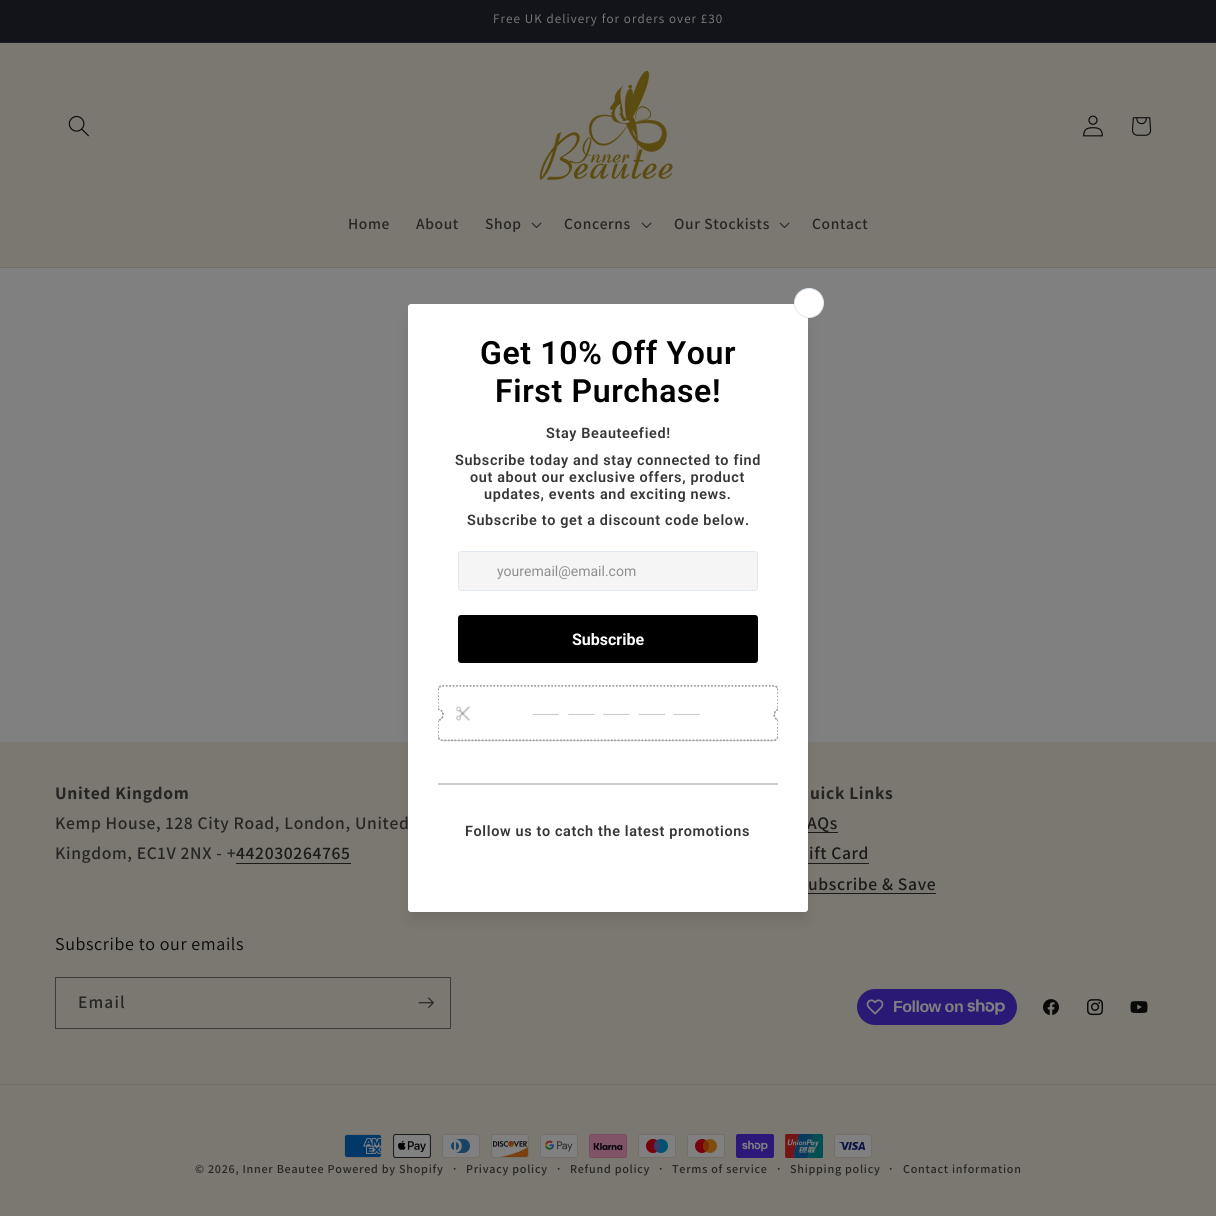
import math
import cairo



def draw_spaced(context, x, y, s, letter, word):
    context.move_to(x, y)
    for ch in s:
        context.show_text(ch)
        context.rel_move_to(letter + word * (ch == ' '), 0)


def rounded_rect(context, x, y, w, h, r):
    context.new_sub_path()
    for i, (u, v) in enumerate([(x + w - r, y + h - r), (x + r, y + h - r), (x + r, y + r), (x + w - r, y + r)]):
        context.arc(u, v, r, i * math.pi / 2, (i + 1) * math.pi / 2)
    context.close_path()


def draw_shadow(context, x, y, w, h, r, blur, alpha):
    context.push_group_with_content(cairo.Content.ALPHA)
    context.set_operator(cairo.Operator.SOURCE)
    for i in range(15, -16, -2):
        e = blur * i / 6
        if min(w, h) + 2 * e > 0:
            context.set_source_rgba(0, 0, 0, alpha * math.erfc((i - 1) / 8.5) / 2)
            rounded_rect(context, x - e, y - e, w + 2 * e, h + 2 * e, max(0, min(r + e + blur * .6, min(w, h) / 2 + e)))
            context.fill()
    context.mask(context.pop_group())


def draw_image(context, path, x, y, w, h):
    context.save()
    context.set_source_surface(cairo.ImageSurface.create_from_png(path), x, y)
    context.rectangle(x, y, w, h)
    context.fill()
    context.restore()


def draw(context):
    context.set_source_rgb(128 / 255, 128 / 255, 128 / 255)
    context.paint()
    context.set_source_rgb(18 / 255, 20 / 255, 26 / 255)
    context.rectangle(0, 0, 1216, 42)
    context.fill()
    context.set_source_rgb(27 / 255, 29 / 255, 34 / 255)
    context.rectangle(0, 42, 1216, 1)
    context.fill()
    context.set_source_rgb(123 / 255, 120 / 255, 113 / 255)
    context.rectangle(0, 43, 1216, 224)
    context.fill()
    context.set_source_rgb(114 / 255, 111 / 255, 104 / 255)
    context.rectangle(0, 267, 1216, 1)
    context.fill()
    draw_image(context, "images/1.png", 68, 115, 21, 22)
    draw_image(context, "images/2.png", 539, 71, 134, 109)
    draw_image(context, "images/3.png", 1083, 115, 20, 22)
    draw_image(context, "images/4.png", 1132, 117, 20, 19)
    draw_image(context, "images/5.png", 531, 222, 11, 6)
    draw_image(context, "images/5.png", 641, 222, 11, 6)
    draw_image(context, "images/5.png", 779, 222, 11, 6)
    context.set_source_rgb(123 / 255, 120 / 255, 113 / 255)
    context.rectangle(0, 742, 1216, 474)
    context.fill()
    context.set_source_rgb(26 / 255, 26 / 255, 25 / 255)
    context.rectangle(808, 832, 30, 1)
    context.fill()
    context.rectangle(808, 863, 61, 1)
    context.fill()
    context.rectangle(808, 893, 128, 1)
    context.fill()
    context.set_source_rgb(0, 0, 0)
    draw_shadow(context, 411, 317, 394, 602, 0.5, 7.5, 0.1)
    context.set_source_rgb(26 / 255, 26 / 255, 25 / 255)
    context.rectangle(236, 863, 115, 1)
    context.fill()
    context.rectangle(55.5, 977.5, 395, 51)
    context.set_source_rgb(60 / 255, 59 / 255, 56 / 255)
    context.set_line_width(1)
    context.stroke()
    draw_image(context, "images/7.png", 418, 997, 16, 11)
    context.set_source_rgb(42 / 255, 26 / 255, 118 / 255)
    rounded_rect(context, 857, 989, 160, 36, 18)
    context.fill()
    draw_image(context, "images/8.png", 866, 999, 18, 16)
    draw_image(context, "images/9.png", 967, 999, 38, 16)
    draw_image(context, "images/10.png", 1043, 999, 16, 16)
    draw_image(context, "images/11.png", 1087, 999, 16, 17)
    draw_image(context, "images/12.png", 1130, 1001, 18, 12)
    context.set_source_rgb(114 / 255, 111 / 255, 104 / 255)
    context.rectangle(0, 1084, 1216, 1)
    context.fill()
    draw_image(context, "images/13.png", 344, 1134, 38, 24)
    draw_image(context, "images/14.png", 393, 1134, 38, 24)
    draw_image(context, "images/15.png", 442, 1134, 38, 24)
    draw_image(context, "images/16.png", 491, 1134, 38, 24)
    draw_image(context, "images/17.png", 540, 1134, 38, 24)
    draw_image(context, "images/18.png", 589, 1134, 38, 24)
    draw_image(context, "images/19.png", 638, 1134, 38, 24)
    draw_image(context, "images/20.png", 687, 1134, 38, 24)
    draw_image(context, "images/21.png", 736, 1134, 38, 24)
    draw_image(context, "images/22.png", 785, 1134, 38, 24)
    draw_image(context, "images/23.png", 834, 1134, 38, 24)
    context.select_font_face("Assistant")
    context.set_font_size(13)
    context.set_source_rgb(128 / 255, 128 / 255, 128 / 255)
    draw_spaced(context, 493, 23, "Free UK delivery for orders over £30", 1.1, 0)
    context.select_font_face("Assistant SemiBold")
    context.set_font_size(15.5)
    context.set_source_rgb(38 / 255, 37 / 255, 35 / 255)
    draw_spaced(context, 348, 229, "Home", 0.65, 0)
    draw_spaced(context, 416, 229, "About", 0.65, 0)
    draw_spaced(context, 485, 229, "Shop", 0.65, 0)
    draw_spaced(context, 564, 229, "Concerns", 0.65, 0)
    draw_spaced(context, 674, 229, "Our Stockists", 0.65, 0)
    draw_spaced(context, 812, 229, "Contact", 0.65, 0)
    context.select_font_face("Assistant", cairo.FontSlant.NORMAL, cairo.FontWeight.BOLD)
    context.set_font_size(17.6)
    draw_spaced(context, 55, 799, "United Kingdom", 0.65, 0)
    context.select_font_face("Assistant SemiBold")
    draw_spaced(context, 55, 829, "Kemp House, 128 City Road, London, United", 0.65, 0)
    draw_spaced(context, 55, 859, "Kingdom, EC1V 2NX - +", 0.65, 0)
    context.set_source_rgb(26 / 255, 26 / 255, 25 / 255)
    draw_spaced(context, 236, 859, "442030264765", 0.65, 0)
    context.select_font_face("Assistant", cairo.FontSlant.NORMAL, cairo.FontWeight.BOLD)
    context.set_source_rgb(38 / 255, 37 / 255, 35 / 255)
    draw_spaced(context, 810, 799, "uick Links", 0.65, 0)
    context.select_font_face("Assistant SemiBold")
    context.set_source_rgb(26 / 255, 26 / 255, 25 / 255)
    draw_spaced(context, 807, 829, "AQs", 0.65, 0)
    context.set_source_rgb(1, 1, 1)
    rounded_rect(context, 408, 304, 400, 608, 3)
    context.fill()
    context.arc(809, 303, 14.5, 0, 2 * math.pi)
    context.fill_preserve()
    context.set_source_rgb(226 / 255, 232 / 255, 240 / 255)
    context.stroke()
    context.set_source_rgb(205 / 255, 205 / 255, 205 / 255)
    context.rectangle(438, 783, 340, 2)
    context.fill()
    draw_image(context, "images/6.png", 438, 685, 340, 57)
    context.set_source_rgb(245 / 255, 245 / 255, 245 / 255)
    rounded_rect(context, 458.5, 551.5, 299, 39, 2.5)
    context.fill_preserve()
    context.set_source_rgb(226 / 255, 232 / 255, 240 / 255)
    context.stroke()
    context.select_font_face("Roboto")
    context.set_font_size(14)
    context.set_source_rgb(142 / 255, 142 / 255, 142 / 255)
    context.move_to(497, 576)
    context.show_text("youremail@email.com")
    context.select_font_face("Roboto SemiBold")
    context.set_font_size(14.4)
    context.set_source_rgb(54 / 255, 54 / 255, 54 / 255)
    draw_spaced(context, 465, 836, "Follow us to catch the latest promotions", 0.65, 0)
    context.set_source_rgb(0, 0, 0)
    rounded_rect(context, 458, 615, 300, 48, 3)
    context.fill()
    context.select_font_face("Roboto", cairo.FontSlant.NORMAL, cairo.FontWeight.BOLD)
    context.set_font_size(16)
    context.set_source_rgb(1, 1, 1)
    context.move_to(572, 645)
    context.show_text("Subscribe")
    context.select_font_face("Roboto SemiBold")
    context.set_font_size(14.4)
    context.set_source_rgb(54 / 255, 54 / 255, 54 / 255)
    draw_spaced(context, 467, 525, "Subscribe to get a discount code below.", 0.65, 0)
    draw_spaced(context, 484, 499, "updates, events and exciting news.", 0.65, 0)
    draw_spaced(context, 470, 482, "out about our exclusive offers, product", 0.65, 0)
    draw_spaced(context, 455, 465, "Subscribe today and stay connected to find", 0.65, 0)
    draw_spaced(context, 546, 438, "Stay Beauteefied!", 0.65, 0)
    context.set_font_size(32)
    context.set_source_rgb(0, 0, 0)
    draw_spaced(context, 495, 402, "First Purchase!", 0.65, 0)
    draw_spaced(context, 480, 364, "Get 10% Off Your", 0.65, 0)
    context.select_font_face("Assistant SemiBold")
    context.set_font_size(17.6)
    context.set_source_rgb(26 / 255, 26 / 255, 25 / 255)
    draw_spaced(context, 809, 859, "ift Card", 0.65, 0)
    draw_spaced(context, 808, 890, "ubscribe & Save", 0.65, 0)
    context.select_font_face("Assistant")
    context.set_font_size(18)
    context.set_source_rgb(9 / 255, 9 / 255, 9 / 255)
    draw_spaced(context, 55, 950, "Subscribe to our emails", 0.6, 0)
    context.select_font_face("Assistant SemiBold")
    context.set_font_size(17.6)
    context.set_source_rgb(38 / 255, 37 / 255, 35 / 255)
    draw_spaced(context, 78, 1008, "Email", 1.1, 0)
    context.select_font_face("Liberation Sans", cairo.FontSlant.NORMAL, cairo.FontWeight.BOLD)
    context.set_font_size(16)
    context.set_source_rgb(128 / 255, 128 / 255, 128 / 255)
    draw_spaced(context, 893, 1012, "Follow on", -0.5, 0)
    context.select_font_face("Assistant SemiBold")
    context.set_font_size(12.1)
    context.set_source_rgb(38 / 255, 37 / 255, 35 / 255)
    draw_spaced(context, 195, 1173, "© 2026, Inner Beautee Powered by Shopify", 0.75, 0)
    context.set_font_size(13)
    draw_spaced(context, 453, 1173, "·", 0.75, 0)
    context.set_font_size(12.1)
    draw_spaced(context, 466, 1173, "Privacy policy", 0.75, 0)
    context.set_font_size(13)
    draw_spaced(context, 557, 1173, "·", 0.75, 0)
    context.set_font_size(12.1)
    draw_spaced(context, 570, 1173, "Refund policy", 0.75, 0)
    context.set_font_size(13)
    draw_spaced(context, 659, 1173, "·", 0.75, 0)
    context.set_font_size(12.1)
    draw_spaced(context, 672, 1173, "Terms of service", 0.75, 0)
    context.set_font_size(13)
    draw_spaced(context, 777, 1173, "·", 0.75, 0)
    context.set_font_size(12.1)
    draw_spaced(context, 790, 1173, "Shipping policy", 0.75, 0)
    context.set_font_size(13)
    draw_spaced(context, 889, 1173, "·", 0.75, 0)
    context.set_font_size(12.1)
    draw_spaced(context, 903, 1173, "Contact information", 0.75, 0)


surface = cairo.ImageSurface(cairo.Format.RGB24, 1216, 1216)
context = cairo.Context(surface)
options = cairo.FontOptions()
options.set_hint_metrics(cairo.HintMetrics.OFF)
options.set_hint_style(cairo.HintStyle.NONE)
context.set_font_options(options)
context.set_miter_limit(4)
draw(context)
surface.write_to_png("out.png")
